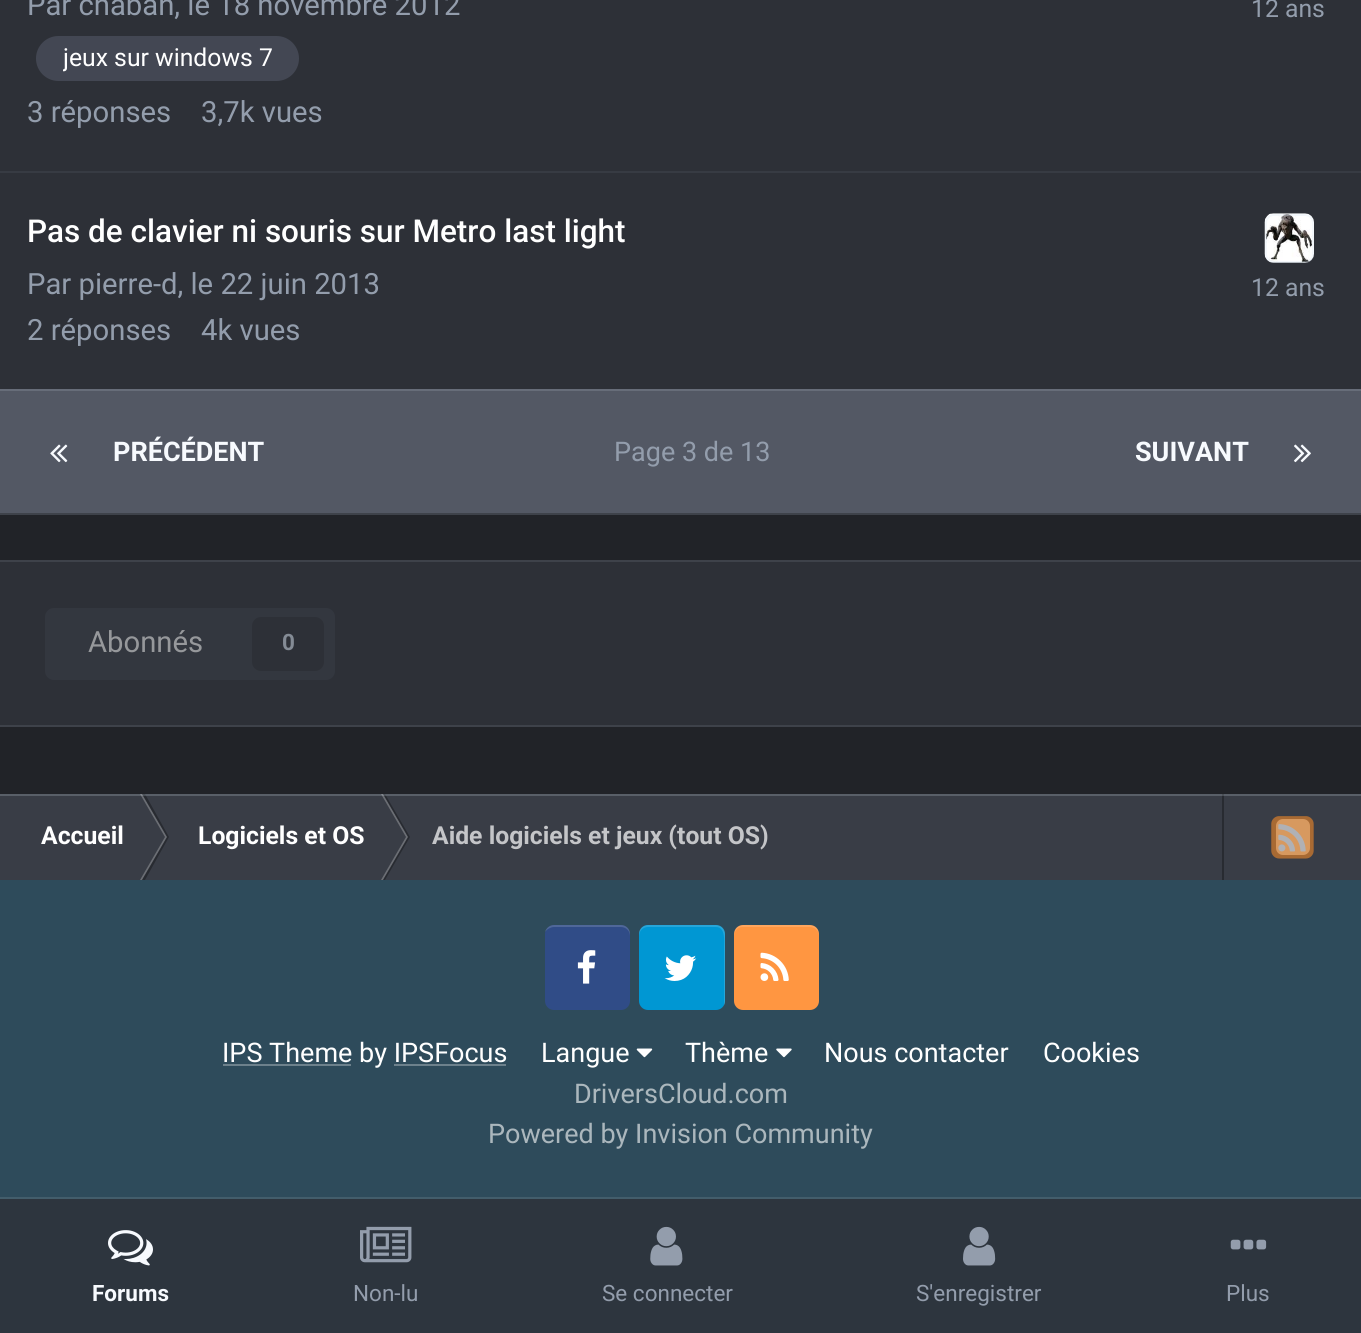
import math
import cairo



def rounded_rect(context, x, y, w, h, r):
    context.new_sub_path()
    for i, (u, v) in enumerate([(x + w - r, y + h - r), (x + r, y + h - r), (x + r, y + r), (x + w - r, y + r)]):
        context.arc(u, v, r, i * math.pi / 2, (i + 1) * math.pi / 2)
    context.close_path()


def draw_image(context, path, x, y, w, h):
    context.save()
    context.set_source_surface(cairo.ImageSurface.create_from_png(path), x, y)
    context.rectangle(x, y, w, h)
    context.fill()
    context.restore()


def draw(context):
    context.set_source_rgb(46 / 255, 75 / 255, 91 / 255)
    context.paint()
    context.set_source_rgb(33 / 255, 35 / 255, 40 / 255)
    context.rectangle(0, 515, 1361, 279)
    context.fill()
    context.set_source_rgb(45 / 255, 48 / 255, 55 / 255)
    context.rectangle(0, 0, 1361, 389)
    context.fill()
    context.set_source_rgb(62 / 255, 66 / 255, 74 / 255)
    context.rectangle(0, 513, 1361, 2)
    context.fill()
    context.set_source_rgb(55 / 255, 59 / 255, 67 / 255)
    context.rectangle(0, 171, 1361, 2)
    context.fill()
    context.set_source_rgb(67 / 255, 71 / 255, 83 / 255)
    rounded_rect(context, 36, 36, 263, 45, 22.5)
    context.fill()
    draw_image(context, "images/1.png", 1264, 213, 50, 50)
    rounded_rect(context, 1266, 215, 47, 47, 8)
    context.set_source_rgba(218 / 255, 230 / 255, 243 / 255, 0.3)
    context.stroke()
    context.set_source_rgb(83 / 255, 88 / 255, 100 / 255)
    context.rectangle(0, 391, 1361, 122)
    context.fill()
    context.set_source_rgb(103 / 255, 109 / 255, 121 / 255)
    context.rectangle(0, 389, 1361, 2)
    context.fill()
    draw_image(context, "images/2.png", 50, 444, 18, 19)
    draw_image(context, "images/3.png", 1294, 444, 17, 19)
    context.set_source_rgb(45 / 255, 48 / 255, 55 / 255)
    context.rectangle(0, 562, 1361, 163)
    context.fill()
    context.set_source_rgb(62 / 255, 66 / 255, 74 / 255)
    context.rectangle(0, 560, 1361, 2)
    context.fill()
    context.rectangle(0, 725, 1361, 2)
    context.fill()
    context.set_source_rgb(51 / 255, 55 / 255, 63 / 255)
    rounded_rect(context, 45, 608, 290, 72, 9)
    context.fill()
    context.set_source_rgb(45 / 255, 48 / 255, 55 / 255)
    rounded_rect(context, 252, 617, 72, 54, 9)
    context.fill()
    context.set_source_rgb(57 / 255, 61 / 255, 70 / 255)
    context.rectangle(0, 794, 1361, 86)
    context.fill()
    context.set_source_rgb(107 / 255, 110 / 255, 116 / 255)
    context.new_path()
    context.move_to(140, 794)
    context.line_to(142, 794)
    context.line_to(167, 837)
    context.line_to(165, 837)
    context.close_path()
    context.fill()
    context.set_source_rgba(0, 0, 0, 0.3)
    context.new_path()
    context.move_to(142, 794)
    context.line_to(145, 794)
    context.line_to(169, 837)
    context.line_to(167, 837)
    context.close_path()
    context.fill()
    context.set_source_rgb(107 / 255, 110 / 255, 116 / 255)
    context.new_path()
    context.move_to(381, 794)
    context.line_to(383, 794)
    context.line_to(408, 837)
    context.line_to(406, 837)
    context.close_path()
    context.fill()
    context.set_source_rgba(0, 0, 0, 0.3)
    context.new_path()
    context.move_to(383, 794)
    context.line_to(385, 794)
    context.line_to(410, 837)
    context.line_to(408, 837)
    context.close_path()
    context.fill()
    context.set_source_rgb(40 / 255, 43 / 255, 49 / 255)
    context.rectangle(1222, 794, 2, 86)
    context.fill()
    context.set_source_rgba(218 / 255, 230 / 255, 243 / 255, 0.2)
    context.rectangle(0, 794, 1361, 2)
    context.fill()
    context.set_source_rgb(107 / 255, 110 / 255, 116 / 255)
    context.new_path()
    context.move_to(140, 880)
    context.line_to(142, 880)
    context.line_to(167, 837)
    context.line_to(165, 837)
    context.close_path()
    context.fill()
    context.set_source_rgba(0, 0, 0, 0.3)
    context.new_path()
    context.move_to(142, 880)
    context.line_to(145, 880)
    context.line_to(169, 837)
    context.line_to(167, 837)
    context.close_path()
    context.fill()
    context.set_source_rgb(107 / 255, 110 / 255, 116 / 255)
    context.new_path()
    context.move_to(381, 880)
    context.line_to(383, 880)
    context.line_to(408, 837)
    context.line_to(406, 837)
    context.close_path()
    context.fill()
    context.set_source_rgba(0, 0, 0, 0.3)
    context.new_path()
    context.move_to(383, 880)
    context.line_to(385, 880)
    context.line_to(410, 837)
    context.line_to(408, 837)
    context.close_path()
    context.fill()
    context.set_source_rgb(176 / 255, 177 / 255, 181 / 255)
    rounded_rect(context, 1276, 819, 34, 36, 7)
    context.fill()
    draw_image(context, "images/4.png", 1271, 816, 43, 43)
    context.set_source_rgb(48 / 255, 76 / 255, 135 / 255)
    rounded_rect(context, 545, 925, 85, 85, 9)
    context.fill()
    context.set_source_rgba(1, 1, 1, 0.15)
    context.new_path()
    context.move_to(554, 927)
    context.line_to(621, 927)
    context.curve_to(626, 927, 630, 931, 630, 936)
    context.line_to(630, 934)
    context.curve_to(630, 929, 626, 925, 621, 925)
    context.line_to(554, 925)
    context.curve_to(550, 925, 546, 928, 545, 932)
    context.curve_to(547, 929, 551, 927, 554, 927)
    context.close_path()
    context.fill()
    draw_image(context, "images/5.png", 577, 950, 19, 34)
    context.set_source_rgb(0, 151 / 255, 211 / 255)
    rounded_rect(context, 639, 925, 86, 85, 9)
    context.fill()
    draw_image(context, "images/6.png", 664, 955, 33, 26)
    context.set_source_rgba(1, 1, 1, 0.15)
    context.new_path()
    context.move_to(648, 927)
    context.curve_to(643, 927, 639, 931, 639, 936)
    context.line_to(639, 934)
    context.curve_to(639, 929, 643, 925, 648, 925)
    context.line_to(716, 925)
    context.curve_to(721, 925, 725, 929, 725, 934)
    context.line_to(725, 1001)
    context.curve_to(725, 1003, 725, 1004, 724, 1005)
    context.line_to(724, 947)
    context.curve_to(724, 942, 726, 927, 716, 927)
    context.close_path()
    context.fill()
    context.set_source_rgb(1, 150 / 255, 65 / 255)
    rounded_rect(context, 734, 925, 85, 85, 9)
    context.fill()
    context.set_source_rgba(1, 1, 1, 0.15)
    context.new_path()
    context.move_to(742, 927)
    context.curve_to(738, 927, 734, 931, 734, 936)
    context.curve_to(734, 923, 744, 925, 754, 925)
    context.line_to(799, 925)
    context.curve_to(809, 925, 819, 923, 819, 936)
    context.curve_to(819, 931, 815, 927, 810, 927)
    context.close_path()
    context.fill()
    draw_image(context, "images/7.png", 760, 952, 29, 29)
    context.set_source_rgb(109 / 255, 129 / 255, 140 / 255)
    context.rectangle(223, 1064, 128, 2)
    context.fill()
    draw_image(context, "images/8.png", 636, 1048, 17, 10)
    draw_image(context, "images/9.png", 776, 1048, 16, 10)
    context.set_source_rgb(67 / 255, 93 / 255, 107 / 255)
    context.rectangle(0, 1197, 1361, 2)
    context.fill()
    context.set_source_rgb(45 / 255, 53 / 255, 62 / 255)
    context.rectangle(0, 1199, 1361, 134)
    context.fill()
    draw_image(context, "images/10.png", 108, 1230, 45, 36)
    draw_image(context, "images/11.png", 360, 1226, 52, 37)
    draw_image(context, "images/12.png", 650, 1226, 33, 40)
    draw_image(context, "images/13.png", 963, 1226, 33, 40)
    draw_image(context, "images/14.png", 1230, 1239, 37, 11)
    context.select_font_face("Roboto")
    context.set_font_size(29.25)
    context.set_source_rgb(147 / 255, 157 / 255, 172 / 255)
    context.move_to(27, 15)
    context.show_text("Par chabah, le 18 novembre 2012")
    context.save()
    context.rectangle(63, 36, 209, 45)
    context.clip()
    context.set_font_size(24.75)
    context.set_source_rgb(1, 1, 1)
    context.move_to(63, 66)
    context.show_text("jeux sur windows 7")
    context.restore()
    context.set_font_size(24.75)
    context.move_to(1251, 17)
    context.show_text("12 ans")
    context.set_font_size(29.25)
    context.move_to(27, 122)
    context.show_text("3 réponses")
    context.move_to(201, 122)
    context.show_text("3,7k vues")
    context.select_font_face("Roboto Medium")
    context.set_font_size(31.5)
    context.set_source_rgb(1, 1, 1)
    context.move_to(27, 242)
    context.show_text("Pas de clavier ni souris sur Metro last light")
    context.select_font_face("Roboto")
    context.set_font_size(29.25)
    context.set_source_rgb(147 / 255, 157 / 255, 172 / 255)
    context.move_to(27, 294)
    context.show_text("Par pierre-d, le 22 juin 2013")
    context.set_font_size(24.75)
    context.move_to(1251, 296)
    context.show_text("12 ans")
    context.set_font_size(29.25)
    context.move_to(27, 340)
    context.show_text("2 réponses")
    context.move_to(201, 340)
    context.show_text("4k vues")
    context.select_font_face("Roboto", cairo.FontSlant.NORMAL, cairo.FontWeight.BOLD)
    context.set_font_size(27)
    context.set_source_rgb(247 / 255, 250 / 255, 254 / 255)
    context.move_to(113, 461)
    context.show_text("PRÉCÉDENT")
    context.select_font_face("Roboto")
    context.set_source_rgb(147 / 255, 157 / 255, 172 / 255)
    context.move_to(614, 461)
    context.show_text("Page 3 de 13")
    context.select_font_face("Roboto", cairo.FontSlant.NORMAL, cairo.FontWeight.BOLD)
    context.set_source_rgb(247 / 255, 250 / 255, 254 / 255)
    context.move_to(1135, 461)
    context.show_text("SUIVANT")
    context.select_font_face("Roboto")
    context.set_font_size(29.25)
    context.set_source_rgb(150 / 255, 152 / 255, 155 / 255)
    context.move_to(88, 652)
    context.show_text("Abonnés")
    context.select_font_face("Roboto", cairo.FontSlant.NORMAL, cairo.FontWeight.BOLD)
    context.set_font_size(22.5)
    context.set_source_rgb(132 / 255, 139 / 255, 149 / 255)
    context.move_to(282, 650)
    context.show_text("0")
    context.set_font_size(24.75)
    context.set_source_rgb(1, 1, 1)
    context.move_to(41, 844)
    context.show_text("Accueil")
    context.move_to(198, 844)
    context.show_text("Logiciels et OS")
    context.set_source_rgb(196 / 255, 197 / 255, 200 / 255)
    context.move_to(432, 844)
    context.show_text("Aide logiciels et jeux (tout OS)")
    context.select_font_face("Roboto")
    context.set_font_size(27)
    context.set_source_rgb(1, 1, 1)
    context.move_to(222, 1062)
    context.show_text("IPS Theme by IPSFocus")
    context.set_source_rgb(109 / 255, 129 / 255, 140 / 255)
    context.rectangle(394, 1064, 112, 2)
    context.fill()
    context.set_source_rgb(1, 1, 1)
    context.move_to(541, 1062)
    context.show_text("Langue")
    context.move_to(685, 1062)
    context.show_text("Thème")
    context.move_to(824, 1062)
    context.show_text("Nous contacter")
    context.move_to(1043, 1062)
    context.show_text("Cookies")
    context.set_source_rgb(171 / 255, 183 / 255, 189 / 255)
    context.move_to(574, 1103)
    context.show_text("DriversCloud.com")
    context.move_to(488, 1143)
    context.show_text("Powered by Invision Community")
    context.select_font_face("Roboto", cairo.FontSlant.NORMAL, cairo.FontWeight.BOLD)
    context.set_font_size(22.5)
    context.set_source_rgb(247 / 255, 250 / 255, 254 / 255)
    context.move_to(92, 1301)
    context.show_text("Forums")
    context.select_font_face("Roboto")
    context.set_source_rgb(147 / 255, 157 / 255, 172 / 255)
    context.move_to(353, 1301)
    context.show_text("Non-lu")
    context.move_to(602, 1301)
    context.show_text("Se connecter")
    context.move_to(916, 1301)
    context.show_text("S'enregistrer")
    context.move_to(1226, 1301)
    context.show_text("Plus")


surface = cairo.ImageSurface(cairo.Format.RGB24, 1361, 1333)
context = cairo.Context(surface)
options = cairo.FontOptions()
options.set_hint_metrics(cairo.HintMetrics.OFF)
options.set_hint_style(cairo.HintStyle.NONE)
context.set_font_options(options)
context.set_miter_limit(4)
draw(context)
surface.write_to_png("out.png")
